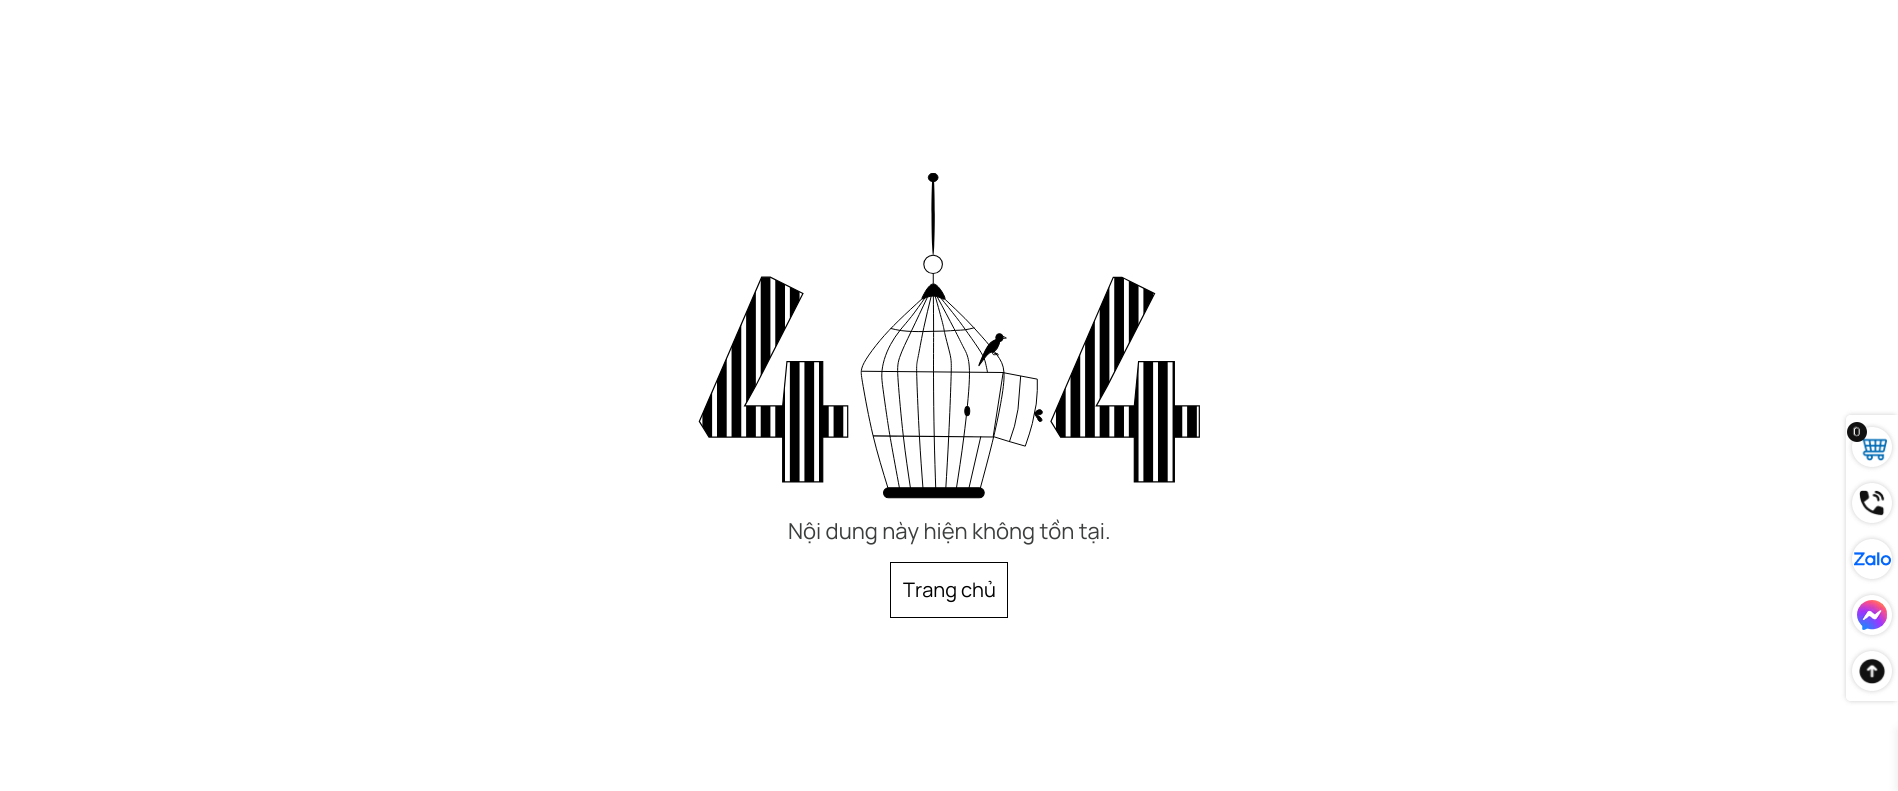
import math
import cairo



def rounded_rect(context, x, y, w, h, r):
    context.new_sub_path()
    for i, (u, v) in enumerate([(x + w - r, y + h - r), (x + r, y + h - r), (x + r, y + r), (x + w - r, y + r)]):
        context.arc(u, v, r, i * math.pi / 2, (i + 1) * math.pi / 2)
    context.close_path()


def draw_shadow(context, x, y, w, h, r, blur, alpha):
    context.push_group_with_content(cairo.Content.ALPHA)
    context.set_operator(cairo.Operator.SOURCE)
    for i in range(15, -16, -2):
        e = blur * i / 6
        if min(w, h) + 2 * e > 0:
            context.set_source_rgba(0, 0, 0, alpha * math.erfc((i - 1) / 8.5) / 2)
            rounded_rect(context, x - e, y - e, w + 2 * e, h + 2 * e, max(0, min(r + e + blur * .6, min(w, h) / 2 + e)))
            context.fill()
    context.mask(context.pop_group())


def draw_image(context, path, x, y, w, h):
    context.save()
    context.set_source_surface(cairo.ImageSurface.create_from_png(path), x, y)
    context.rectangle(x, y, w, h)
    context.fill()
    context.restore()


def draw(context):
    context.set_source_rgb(1, 1, 1)
    context.paint()
    context.set_source_rgb(0, 0, 0)
    draw_shadow(context, 1898, 730, 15, 60, 0, 5, 0.1)
    context.save()
    context.set_fill_rule(cairo.FillRule.EVEN_ODD)
    context.new_path()
    context.move_to(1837, 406)
    context.line_to(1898, 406)
    context.line_to(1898, 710)
    context.line_to(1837, 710)
    context.close_path()
    context.move_to(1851, 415)
    context.line_to(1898, 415)
    context.line_to(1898, 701)
    context.line_to(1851, 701)
    context.curve_to(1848, 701, 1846, 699, 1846, 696)
    context.line_to(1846, 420)
    context.curve_to(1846, 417, 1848, 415, 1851, 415)
    context.close_path()
    context.clip()
    draw_shadow(context, 1846, 415, 52, 286, 5, 2.5, 0.2)
    context.restore()
    draw_shadow(context, 1852, 427, 40, 40, 20, 2.5, 0.2)
    context.set_source_rgb(1, 1, 1)
    context.arc(1872, 447, 20, 0, 2 * math.pi)
    context.fill()
    draw_image(context, "images/1.png", 1862, 438, 25, 23)
    context.set_source_rgb(17 / 255, 17 / 255, 17 / 255)
    context.arc(1857, 432, 10, 0, 2 * math.pi)
    context.fill()
    context.set_source_rgb(0, 0, 0)
    draw_shadow(context, 1852, 483, 40, 40, 20, 2.5, 0.2)
    context.set_source_rgb(1, 1, 1)
    context.arc(1872, 503, 20, 0, 2 * math.pi)
    context.fill()
    draw_image(context, "images/2.png", 1859, 490, 26, 26)
    context.set_source_rgb(0, 0, 0)
    draw_shadow(context, 1852, 539, 40, 40, 20, 2.5, 0.2)
    context.set_source_rgb(1, 1, 1)
    context.arc(1872, 559, 20, 0, 2 * math.pi)
    context.fill()
    draw_image(context, "images/3.png", 1854, 552, 37, 14)
    context.set_source_rgb(0, 0, 0)
    draw_shadow(context, 1852, 595, 40, 40, 20, 2.5, 0.2)
    context.set_source_rgb(1, 1, 1)
    context.arc(1872, 615, 20, 0, 2 * math.pi)
    context.fill()
    draw_image(context, "images/4.png", 1857, 600, 30, 30)
    draw_image(context, "images/5.png", 698, 173, 502, 326)
    context.rectangle(890.5, 562.5, 117, 55)
    context.set_source_rgb(0, 0, 0)
    context.set_line_width(1)
    context.stroke()
    context.set_source_rgb(0, 0, 0)
    draw_shadow(context, 1852, 651, 40, 40, 20, 2.5, 0.2)
    context.set_source_rgb(1, 1, 1)
    context.arc(1872, 671, 20, 0, 2 * math.pi)
    context.fill()
    draw_image(context, "images/6.png", 1859, 658, 27, 26)
    context.select_font_face("Manrope Medium")
    context.set_font_size(12)
    context.move_to(1853, 436)
    context.show_text("0")
    context.select_font_face("Manrope")
    context.set_font_size(13)
    context.set_source_rgb(90 / 255, 90 / 255, 90 / 255)
    context.move_to(1852, 436)
    context.show_text("0")
    context.set_font_size(22)
    context.set_source_rgb(60 / 255, 61 / 255, 61 / 255)
    context.move_to(788, 539)
    context.show_text("Nội dung này hiện không tồn tại.")
    context.set_font_size(20)
    context.set_source_rgb(0, 0, 0)
    context.move_to(903, 597)
    context.show_text("Trang chủ")


surface = cairo.ImageSurface(cairo.Format.RGB24, 1898, 791)
context = cairo.Context(surface)
options = cairo.FontOptions()
options.set_hint_metrics(cairo.HintMetrics.OFF)
options.set_hint_style(cairo.HintStyle.NONE)
context.set_font_options(options)
context.set_miter_limit(4)
draw(context)
surface.write_to_png("out.png")
